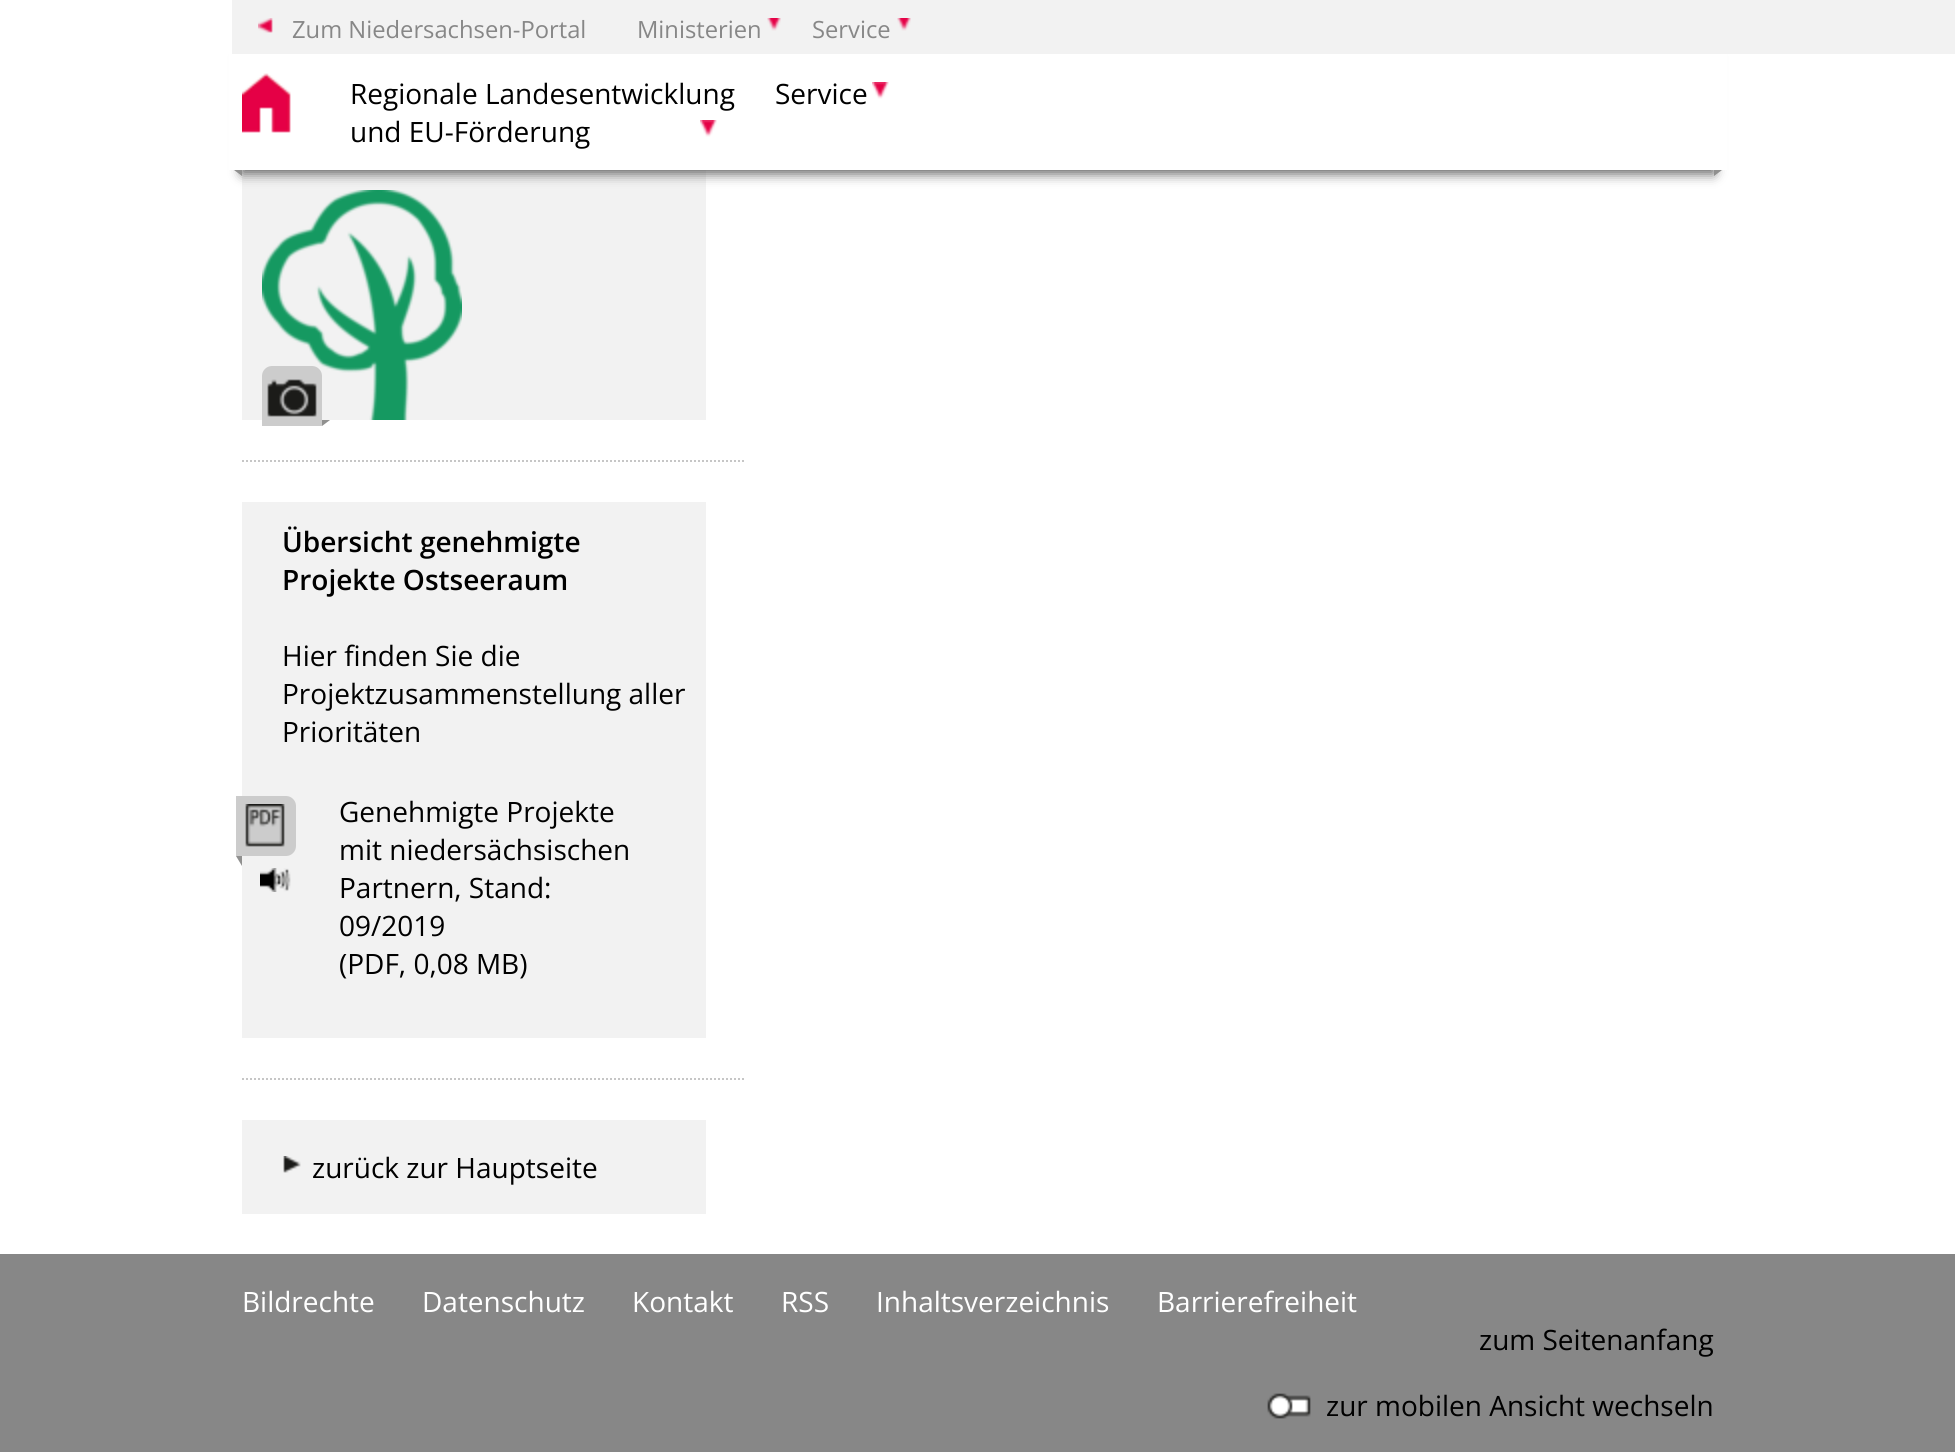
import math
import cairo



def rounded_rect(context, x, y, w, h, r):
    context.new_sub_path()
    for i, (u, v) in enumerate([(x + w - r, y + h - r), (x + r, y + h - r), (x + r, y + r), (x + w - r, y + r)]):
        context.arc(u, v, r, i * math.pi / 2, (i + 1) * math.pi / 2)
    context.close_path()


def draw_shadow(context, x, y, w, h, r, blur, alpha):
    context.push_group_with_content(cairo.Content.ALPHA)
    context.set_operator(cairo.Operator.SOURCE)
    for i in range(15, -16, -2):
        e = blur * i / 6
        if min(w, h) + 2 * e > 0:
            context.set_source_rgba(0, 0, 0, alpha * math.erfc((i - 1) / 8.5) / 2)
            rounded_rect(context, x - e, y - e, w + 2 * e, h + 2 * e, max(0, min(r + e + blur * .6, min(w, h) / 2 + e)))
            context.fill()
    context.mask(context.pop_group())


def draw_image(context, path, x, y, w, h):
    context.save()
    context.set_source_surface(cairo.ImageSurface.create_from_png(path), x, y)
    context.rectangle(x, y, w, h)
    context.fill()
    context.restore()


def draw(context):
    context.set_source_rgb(1, 1, 1)
    context.paint()
    context.set_source_rgb(242 / 255, 242 / 255, 242 / 255)
    context.rectangle(242, 170, 464, 250)
    context.fill()
    draw_image(context, "images/5.png", 262, 190, 200, 230)
    context.set_source_rgb(102 / 255, 102 / 255, 102 / 255)
    draw_shadow(context, 242, 58, 1472, 116, 0, 6, 1)
    context.set_source_rgb(1, 1, 1)
    context.rectangle(229, 47, 13, 123)
    context.fill()
    context.set_source_rgb(242 / 255, 242 / 255, 242 / 255)
    context.rectangle(232, 0, 1723, 54)
    context.fill()
    draw_image(context, "images/1.png", 258, 18, 15, 15)
    draw_image(context, "images/2.png", 767, 18, 14, 13)
    draw_image(context, "images/2.png", 897, 18, 14, 13)
    context.set_source_rgb(1, 1, 1)
    context.rectangle(242, 54, 1485, 116)
    context.fill()
    draw_image(context, "images/3.png", 242, 73, 49, 60)
    draw_image(context, "images/4.png", 700, 120, 17, 17)
    draw_image(context, "images/4.png", 872, 82, 17, 17)
    context.set_source_rgb(144 / 255, 144 / 255, 143 / 255)
    context.new_path()
    context.move_to(242, 170)
    context.line_to(242, 176)
    context.line_to(234, 170)
    context.close_path()
    context.fill()
    context.new_path()
    context.move_to(1714, 176)
    context.line_to(1714, 170)
    context.line_to(1722, 170)
    context.close_path()
    context.fill()
    context.set_source_rgb(204 / 255, 204 / 255, 204 / 255)
    context.new_path()
    context.move_to(272, 366)
    context.line_to(312, 366)
    context.curve_to(317.5, 366, 322, 370.5, 322, 376)
    context.line_to(322, 426)
    context.line_to(262, 426)
    context.line_to(262, 376)
    context.curve_to(262, 370.5, 266.5, 366, 272, 366)
    context.close_path()
    context.fill()
    draw_image(context, "images/6.png", 267, 379, 50, 38)
    context.set_source_rgb(144 / 255, 144 / 255, 143 / 255)
    context.new_path()
    context.move_to(322, 426)
    context.line_to(322, 420)
    context.line_to(330, 420)
    context.close_path()
    context.fill()
    context.set_source_rgb(242 / 255, 242 / 255, 242 / 255)
    context.rectangle(242, 502, 464, 536)
    context.fill()
    context.new_path()
    context.move_to(242, 461)
    context.line_to(744, 461)
    context.set_source_rgb(198 / 255, 198 / 255, 198 / 255)
    context.set_dash([2, 2])
    context.stroke()
    context.set_source_rgb(204 / 255, 204 / 255, 204 / 255)
    context.new_path()
    context.move_to(236, 796)
    context.line_to(286, 796)
    context.curve_to(291.5, 796, 296, 800.5, 296, 806)
    context.line_to(296, 846)
    context.curve_to(296, 851.5, 291.5, 856, 286, 856)
    context.line_to(236, 856)
    context.close_path()
    context.fill()
    draw_image(context, "images/7.png", 245, 804, 40, 43)
    context.set_source_rgb(144 / 255, 144 / 255, 143 / 255)
    context.new_path()
    context.move_to(236, 856)
    context.line_to(242, 856)
    context.line_to(242, 866)
    context.close_path()
    context.fill()
    draw_image(context, "images/8.png", 260, 868, 31, 24)
    context.set_source_rgb(242 / 255, 242 / 255, 242 / 255)
    context.rectangle(242, 1120, 464, 94)
    context.fill()
    context.new_path()
    context.move_to(242, 1079)
    context.line_to(744, 1079)
    context.set_source_rgb(198 / 255, 198 / 255, 198 / 255)
    context.stroke()
    draw_image(context, "images/9.png", 283, 1156, 18, 17)
    context.set_source_rgb(135 / 255, 135 / 255, 135 / 255)
    context.rectangle(0, 1254, 1955, 198)
    context.fill()
    draw_image(context, "images/10.png", 1267, 1393, 44, 26)
    context.select_font_face("Open Sans")
    context.set_font_size(23.75)
    context.move_to(292, 38)
    context.show_text("Zum Niedersachsen-Portal")
    context.move_to(637, 38)
    context.show_text("Ministerien")
    context.move_to(812, 38)
    context.show_text("Service")
    context.set_font_size(28)
    context.set_source_rgb(0, 0, 0)
    context.move_to(350, 104)
    context.show_text("Regionale Landesentwicklung")
    context.move_to(350, 142)
    context.show_text("und EU-Förderung")
    context.move_to(775, 104)
    context.show_text("Service")
    context.select_font_face("Open Sans SemiBold")
    context.move_to(282, 552)
    context.show_text("Übersicht genehmigte")
    context.move_to(282, 590)
    context.show_text("Projekte Ostseeraum")
    context.select_font_face("Open Sans")
    context.move_to(282, 666)
    context.show_text("Hier finden Sie die")
    context.move_to(282, 704)
    context.show_text("Projektzusammenstellung aller")
    context.move_to(282, 742)
    context.show_text("Prioritäten")
    context.move_to(339, 822)
    context.show_text("Genehmigte Projekte")
    context.move_to(339, 860)
    context.show_text("mit niedersächsischen")
    context.move_to(339, 898)
    context.show_text("Partnern, Stand:")
    context.move_to(339, 936)
    context.show_text("09/2019")
    context.move_to(339, 974)
    context.show_text("(PDF, 0,08 MB)")
    context.move_to(312, 1178)
    context.show_text("zurück zur Hauptseite")
    context.set_source_rgb(1, 1, 1)
    context.move_to(242, 1312)
    context.show_text("Bildrechte")
    context.move_to(422, 1312)
    context.show_text("Datenschutz")
    context.move_to(632, 1312)
    context.show_text("Kontakt")
    context.move_to(781, 1312)
    context.show_text("RSS")
    context.move_to(876, 1312)
    context.show_text("Inhaltsverzeichnis")
    context.move_to(1157, 1312)
    context.show_text("Barrierefreiheit")
    context.set_source_rgb(0, 0, 0)
    context.move_to(1479, 1350)
    context.show_text("zum Seitenanfang")
    context.move_to(1326, 1416)
    context.show_text("zur mobilen Ansicht wechseln")


surface = cairo.ImageSurface(cairo.Format.RGB24, 1955, 1452)
context = cairo.Context(surface)
options = cairo.FontOptions()
options.set_hint_metrics(cairo.HintMetrics.OFF)
options.set_hint_style(cairo.HintStyle.NONE)
context.set_font_options(options)
context.set_miter_limit(4)
draw(context)
surface.write_to_png("out.png")
